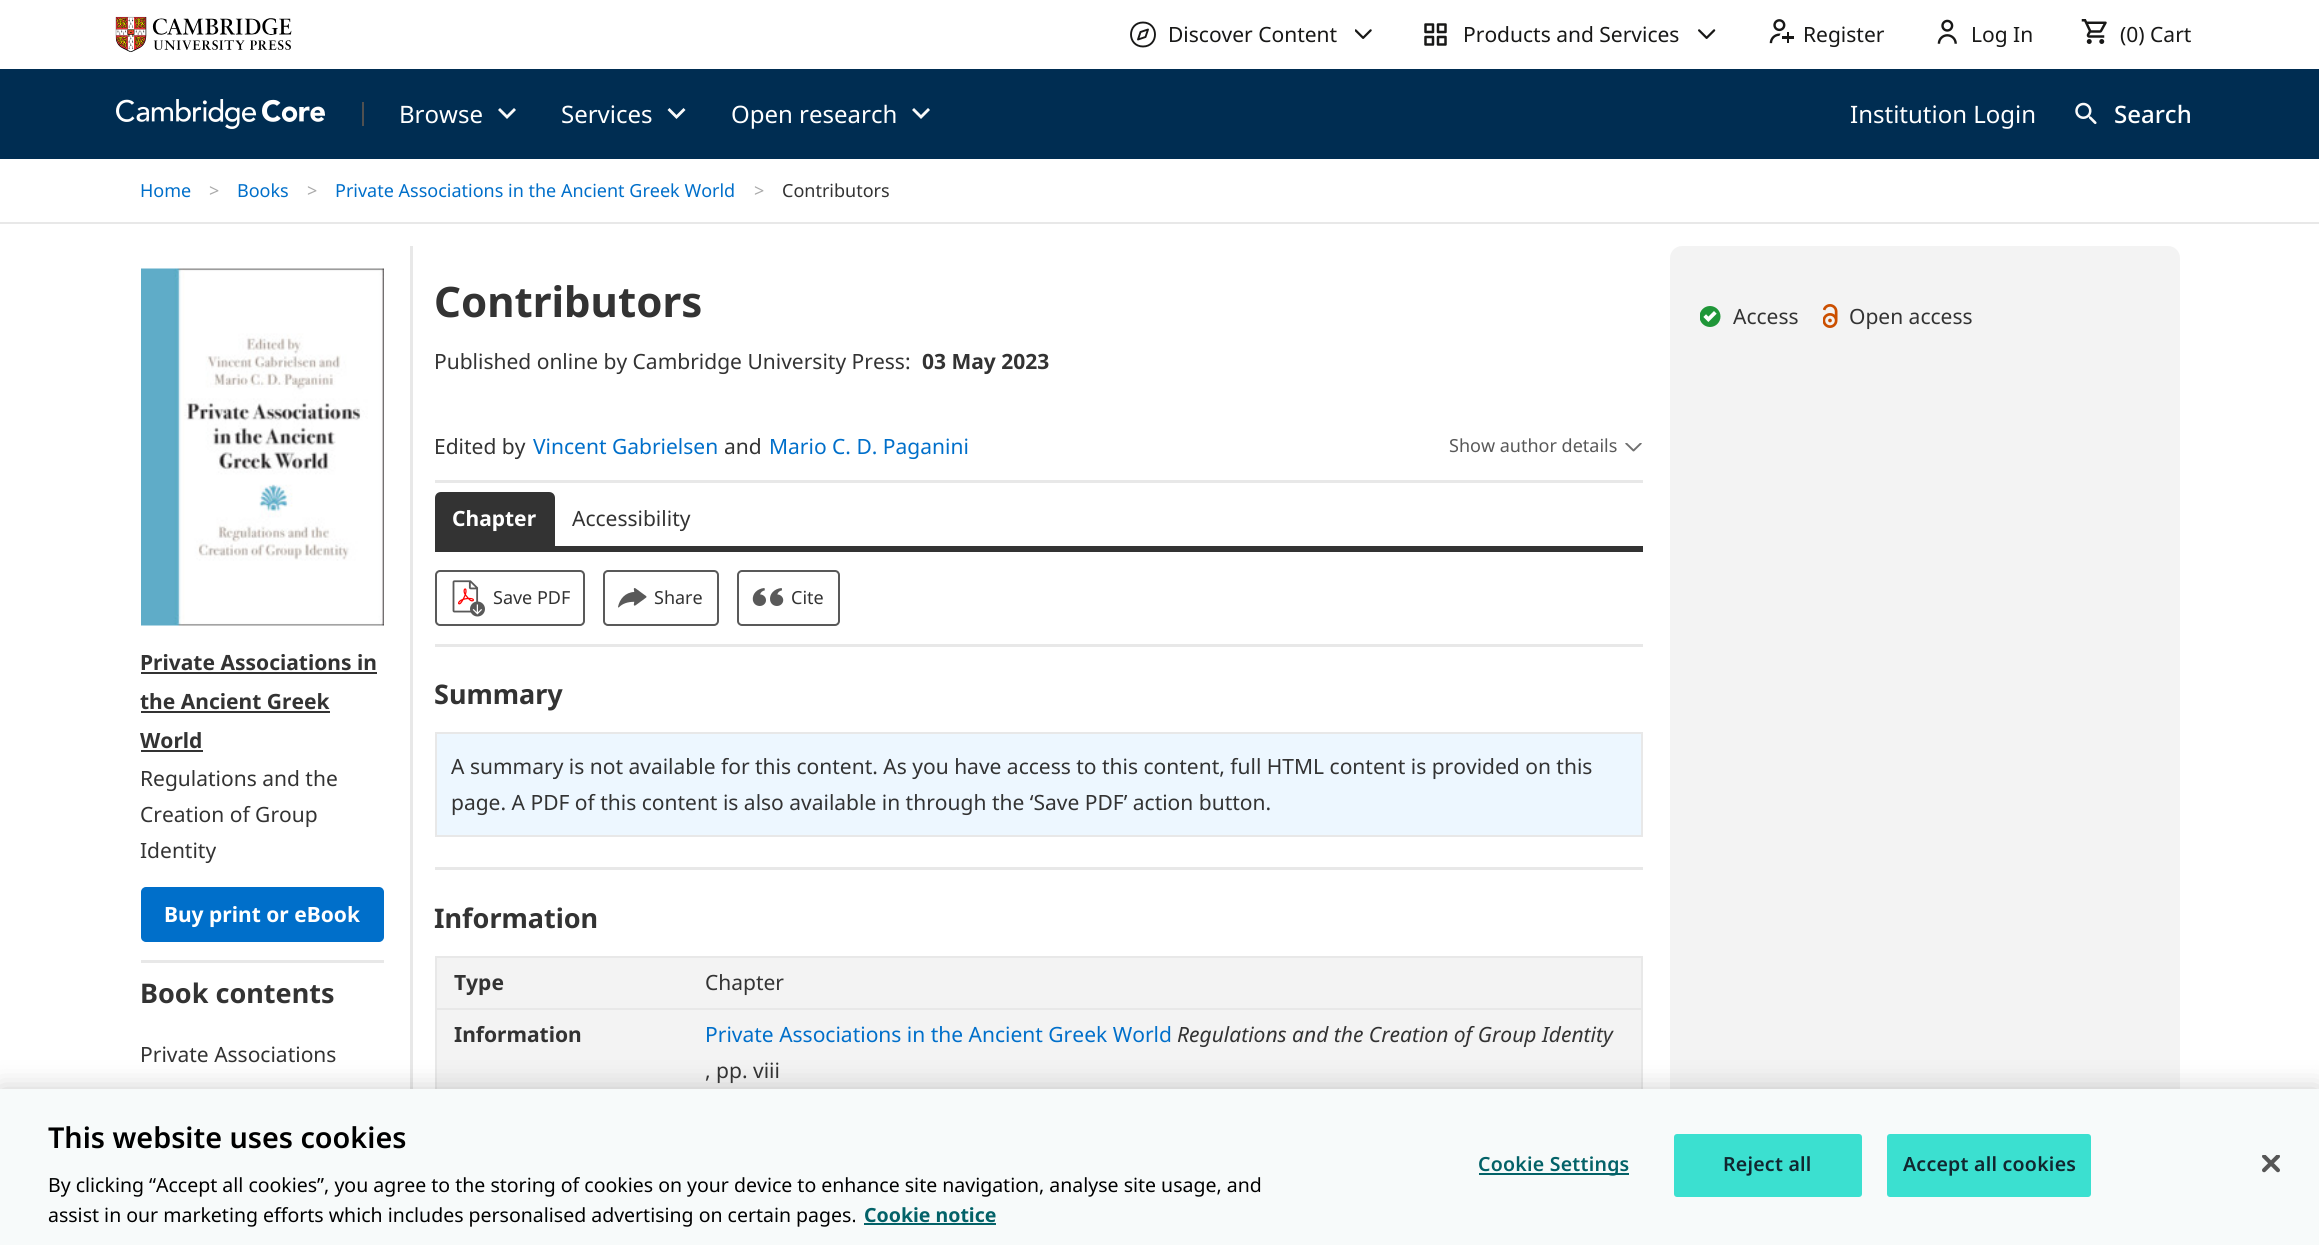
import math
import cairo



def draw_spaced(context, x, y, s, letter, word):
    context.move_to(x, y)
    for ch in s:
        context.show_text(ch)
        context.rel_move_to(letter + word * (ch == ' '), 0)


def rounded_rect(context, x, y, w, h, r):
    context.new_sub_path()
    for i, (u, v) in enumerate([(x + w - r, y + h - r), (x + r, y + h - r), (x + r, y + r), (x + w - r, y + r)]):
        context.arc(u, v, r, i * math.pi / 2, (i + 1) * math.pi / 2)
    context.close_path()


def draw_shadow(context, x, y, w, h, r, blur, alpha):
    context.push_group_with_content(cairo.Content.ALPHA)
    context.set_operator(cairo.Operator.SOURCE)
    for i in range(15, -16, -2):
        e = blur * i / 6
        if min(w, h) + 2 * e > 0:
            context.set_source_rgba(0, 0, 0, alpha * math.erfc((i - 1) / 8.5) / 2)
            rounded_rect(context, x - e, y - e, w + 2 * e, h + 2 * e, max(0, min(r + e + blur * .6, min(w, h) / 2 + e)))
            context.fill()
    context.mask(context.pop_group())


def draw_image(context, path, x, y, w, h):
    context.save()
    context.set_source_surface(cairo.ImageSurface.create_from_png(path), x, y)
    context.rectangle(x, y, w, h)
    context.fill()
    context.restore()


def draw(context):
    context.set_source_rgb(1, 1, 1)
    context.paint()
    draw_image(context, "images/1.png", 115, 16, 177, 37)
    context.new_path()
    context.move_to(1143, 46.5)
    context.curve_to(1159, 46.5, 1159, 22.5, 1143, 22.5)
    context.curve_to(1127, 22.5, 1127, 46.5, 1143, 46.5)
    context.close_path()
    context.move_to(1148, 29.5)
    context.line_to(1145.5, 37)
    context.line_to(1138, 39.5)
    context.line_to(1140.5, 32)
    context.close_path()
    context.set_source_rgb(24 / 255, 24 / 255, 23 / 255)
    context.set_line_width(1.9)
    context.set_line_cap(cairo.LineCap.ROUND)
    context.set_line_join(cairo.LineJoin.ROUND)
    context.stroke()
    draw_image(context, "images/2.png", 1355, 29, 17, 10)
    draw_image(context, "images/3.png", 1424, 23, 23, 23)
    draw_image(context, "images/4.png", 1698, 29, 18, 10)
    draw_image(context, "images/5.png", 1769, 19, 25, 25)
    draw_image(context, "images/6.png", 1937, 19, 20, 25)
    draw_image(context, "images/7.png", 2081, 19, 26, 25)
    context.set_source_rgb(0, 45 / 255, 82 / 255)
    context.rectangle(0, 69, 2319, 90)
    context.fill()
    draw_image(context, "images/8.png", 116, 99, 209, 30)
    context.set_source_rgb(80 / 255, 80 / 255, 80 / 255)
    context.rectangle(362, 102, 2, 24)
    context.fill()
    context.set_source_rgb(250 / 255, 250 / 255, 250 / 255)
    context.new_path()
    context.move_to(507, 119)
    context.line_to(498, 110)
    context.line_to(500, 108)
    context.line_to(507, 115)
    context.line_to(514, 108)
    context.line_to(516, 110)
    context.close_path()
    context.fill()
    context.new_path()
    context.move_to(676.5, 119)
    context.line_to(667.5, 110)
    context.line_to(669.5, 108)
    context.line_to(676.5, 115)
    context.line_to(683.5, 108)
    context.line_to(685.5, 110)
    context.close_path()
    context.fill()
    context.new_path()
    context.move_to(921, 119)
    context.line_to(912, 110)
    context.line_to(914, 108)
    context.line_to(921, 115)
    context.line_to(928, 108)
    context.line_to(930, 110)
    context.close_path()
    context.fill()
    draw_image(context, "images/9.png", 2075, 102, 22, 23)
    context.set_source_rgb(232 / 255, 232 / 255, 232 / 255)
    context.rectangle(0, 222, 2319, 2)
    context.fill()
    draw_image(context, "images/10.png", 141, 268, 243, 358)
    context.set_source_rgb(51 / 255, 51 / 255, 51 / 255)
    context.rectangle(141, 672, 236, 2)
    context.fill()
    context.rectangle(141, 711, 189, 2)
    context.fill()
    context.rectangle(141, 750, 62, 2)
    context.fill()
    context.set_source_rgb(0, 111 / 255, 202 / 255)
    rounded_rect(context, 142, 888, 241, 53, 4)
    context.fill_preserve()
    context.set_line_width(2)
    context.set_line_cap(cairo.LineCap.BUTT)
    context.set_line_join(cairo.LineJoin.MITER)
    context.stroke()
    context.set_source_rgb(232 / 255, 232 / 255, 232 / 255)
    context.rectangle(141, 960, 243, 3)
    context.fill()
    context.rectangle(410, 246, 3, 843)
    context.fill()
    draw_image(context, "images/11.png", 1625, 443, 17, 9)
    context.rectangle(435, 480, 1208, 3)
    context.fill()
    context.set_source_rgb(51 / 255, 51 / 255, 51 / 255)
    context.rectangle(435, 546, 1208, 6)
    context.fill()
    context.new_path()
    context.move_to(441, 492)
    context.line_to(549, 492)
    context.curve_to(552.5, 492, 555, 494.5, 555, 498)
    context.line_to(555, 546)
    context.line_to(435, 546)
    context.line_to(435, 498)
    context.curve_to(435, 494.5, 437.5, 492, 441, 492)
    context.close_path()
    context.fill()
    rounded_rect(context, 436, 571, 148, 54, 4)
    context.set_source_rgb(89 / 255, 89 / 255, 89 / 255)
    context.stroke()
    draw_image(context, "images/12.png", 452, 580, 33, 37)
    rounded_rect(context, 604, 571, 114, 54, 4)
    context.stroke()
    draw_image(context, "images/13.png", 618, 588, 29, 20)
    rounded_rect(context, 738, 571, 101, 54, 4)
    context.stroke()
    draw_image(context, "images/14.png", 752, 588, 32, 18)
    context.set_source_rgb(232 / 255, 232 / 255, 232 / 255)
    context.rectangle(435, 644, 1208, 3)
    context.fill()
    context.set_source_rgb(237 / 255, 247 / 255, 1)
    context.rectangle(436, 733, 1206, 103)
    context.fill_preserve()
    context.set_source_rgb(232 / 255, 232 / 255, 232 / 255)
    context.stroke()
    context.rectangle(435, 867, 1208, 3)
    context.fill()
    context.set_source_rgb(243 / 255, 243 / 255, 243 / 255)
    context.rectangle(437, 958, 1204, 131)
    context.fill()
    context.set_source_rgb(232 / 255, 232 / 255, 232 / 255)
    context.rectangle(435, 956, 1208, 2)
    context.fill()
    context.rectangle(1641, 956, 2, 133)
    context.fill()
    context.rectangle(435, 956, 2, 133)
    context.fill()
    context.rectangle(437, 1008, 1204, 2)
    context.fill()
    context.set_source_rgb(243 / 255, 243 / 255, 243 / 255)
    rounded_rect(context, 1670, 246, 510, 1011, 12)
    context.fill()
    draw_image(context, "images/15.png", 1700, 306, 21, 21)
    draw_image(context, "images/16.png", 1823, 304, 15, 24)
    context.set_source_rgb(0, 0, 0)
    draw_shadow(context, 0, 1089, 2319, 156, 0, 13.5, 0.2)
    context.set_source_rgb(247 / 255, 250 / 255, 250 / 255)
    context.rectangle(0, 1089, 2319, 156)
    context.fill()
    context.set_source_rgb(3 / 255, 98 / 255, 104 / 255)
    context.rectangle(864, 1223, 132, 2)
    context.fill()
    context.rectangle(1479, 1173, 150, 2)
    context.fill()
    context.set_source_rgb(59 / 255, 224 / 255, 208 / 255)
    rounded_rect(context, 1675, 1135, 186, 61, 2)
    context.fill_preserve()
    context.stroke()
    rounded_rect(context, 1888, 1135, 202, 61, 2)
    context.fill_preserve()
    context.stroke()
    draw_image(context, "images/17.png", 2262, 1155, 18, 18)
    context.select_font_face("Noto Sans")
    context.set_font_size(21)
    context.set_source_rgb(24 / 255, 24 / 255, 23 / 255)
    context.move_to(1168, 42)
    context.show_text("Discover Content")
    context.move_to(1463, 42)
    context.show_text("Products and Services")
    context.move_to(1803, 42)
    context.show_text("Register")
    context.move_to(1971, 42)
    context.show_text("Log In")
    context.move_to(2120, 42)
    context.show_text("(0) Cart")
    context.set_font_size(24)
    context.set_source_rgb(1, 1, 1)
    context.move_to(399, 123)
    context.show_text("Browse")
    context.move_to(561, 123)
    context.show_text("Services")
    context.move_to(731, 123)
    context.show_text("Open research")
    context.move_to(1850, 123)
    context.show_text("Institution Login")
    context.select_font_face("Noto Sans Medium")
    context.move_to(2114, 123)
    context.show_text("Search")
    context.select_font_face("Noto Sans")
    context.set_font_size(18)
    context.set_source_rgb(0, 111 / 255, 202 / 255)
    context.move_to(140, 197)
    context.show_text("Home")
    context.set_source_rgb(170 / 255, 170 / 255, 170 / 255)
    context.move_to(209, 197)
    context.show_text(">")
    context.set_source_rgb(0, 111 / 255, 202 / 255)
    context.move_to(237, 197)
    context.show_text("Books")
    context.set_source_rgb(170 / 255, 170 / 255, 170 / 255)
    context.move_to(307, 197)
    context.show_text(">")
    context.set_source_rgb(0, 111 / 255, 202 / 255)
    context.move_to(335, 197)
    context.show_text("Private Associations in the Ancient Greek World")
    context.set_source_rgb(170 / 255, 170 / 255, 170 / 255)
    context.move_to(754, 197)
    context.show_text(">")
    context.set_source_rgb(51 / 255, 51 / 255, 51 / 255)
    context.move_to(782, 197)
    context.show_text("Contributors")
    context.select_font_face("Noto Sans", cairo.FontSlant.NORMAL, cairo.FontWeight.BOLD)
    context.set_font_size(21)
    context.move_to(140, 670)
    context.show_text("Private Associations in")
    context.move_to(140, 709)
    context.show_text("the Ancient Greek")
    context.move_to(140, 748)
    context.show_text("World")
    context.select_font_face("Noto Sans")
    context.move_to(140, 786)
    context.show_text("Regulations and the")
    context.move_to(140, 822)
    context.show_text("Creation of Group")
    context.move_to(140, 858)
    context.show_text("Identity")
    context.select_font_face("Noto Sans", cairo.FontSlant.NORMAL, cairo.FontWeight.BOLD)
    context.set_source_rgb(1, 1, 1)
    context.move_to(164, 922)
    context.show_text("Buy print or eBook")
    context.set_font_size(27)
    context.set_source_rgb(51 / 255, 51 / 255, 51 / 255)
    context.move_to(140, 1003)
    context.show_text("Book contents")
    context.select_font_face("Noto Sans")
    context.set_font_size(21)
    context.move_to(140, 1062)
    context.show_text("Private Associations")
    context.select_font_face("Noto Sans", cairo.FontSlant.NORMAL, cairo.FontWeight.BOLD)
    context.set_font_size(42)
    context.move_to(434, 317)
    context.show_text("Contributors")
    context.select_font_face("Noto Sans")
    context.set_font_size(21)
    context.move_to(434, 369)
    context.show_text("Published online by Cambridge University Press:")
    context.select_font_face("Noto Sans", cairo.FontSlant.NORMAL, cairo.FontWeight.BOLD)
    context.move_to(922, 369)
    context.show_text("03 May 2023")
    context.select_font_face("Noto Sans")
    context.move_to(434, 454)
    context.show_text("Edited by")
    context.set_source_rgb(0, 111 / 255, 202 / 255)
    context.move_to(533, 454)
    context.show_text("Vincent Gabrielsen")
    context.set_source_rgb(51 / 255, 51 / 255, 51 / 255)
    context.move_to(724, 454)
    context.show_text("and")
    context.set_source_rgb(0, 111 / 255, 202 / 255)
    context.move_to(769, 454)
    context.show_text("Mario C. D. Paganini")
    context.set_font_size(18)
    context.set_source_rgb(89 / 255, 89 / 255, 89 / 255)
    context.move_to(1449, 452)
    context.show_text("Show author details")
    context.select_font_face("Noto Sans", cairo.FontSlant.NORMAL, cairo.FontWeight.BOLD)
    context.set_font_size(21)
    context.set_source_rgb(1, 1, 1)
    context.move_to(452, 526)
    context.show_text("Chapter")
    context.select_font_face("Noto Sans")
    context.set_source_rgb(51 / 255, 51 / 255, 51 / 255)
    context.move_to(572, 526)
    context.show_text("Accessibility")
    context.set_font_size(18)
    context.move_to(493, 604)
    context.show_text("Save PDF")
    context.move_to(654, 604)
    context.show_text("Share")
    context.move_to(791, 604)
    context.show_text("Cite")
    context.select_font_face("Noto Sans", cairo.FontSlant.NORMAL, cairo.FontWeight.BOLD)
    context.set_font_size(27)
    context.move_to(434, 704)
    context.show_text("Summary")
    context.select_font_face("Noto Sans")
    context.set_font_size(21)
    context.move_to(451, 774)
    context.show_text("A summary is not available for this content. As you have access to this content, full HTML content is provided on this")
    context.move_to(451, 810)
    context.show_text("page. A PDF of this content is also available in through the ‘Save PDF’ action button.")
    context.select_font_face("Noto Sans", cairo.FontSlant.NORMAL, cairo.FontWeight.BOLD)
    context.set_font_size(27)
    context.move_to(434, 928)
    context.show_text("Information")
    context.set_font_size(21)
    context.move_to(454, 990)
    context.show_text("Type")
    context.select_font_face("Noto Sans")
    context.move_to(705, 990)
    context.show_text("Chapter")
    context.select_font_face("Noto Sans", cairo.FontSlant.NORMAL, cairo.FontWeight.BOLD)
    context.move_to(454, 1042)
    context.show_text("Information")
    context.select_font_face("Noto Sans")
    context.set_source_rgb(0, 111 / 255, 202 / 255)
    context.move_to(705, 1042)
    context.show_text("Private Associations in the Ancient Greek World")
    context.select_font_face("Noto Sans", cairo.FontSlant.ITALIC)
    context.set_source_rgb(51 / 255, 51 / 255, 51 / 255)
    context.move_to(1177, 1042)
    context.show_text("Regulations and the Creation of Group Identity")
    context.select_font_face("Noto Sans")
    context.move_to(705, 1078)
    context.show_text(", pp. viii")
    context.move_to(1733, 324)
    context.show_text("Access")
    context.move_to(1849, 324)
    context.show_text("Open access")
    context.select_font_face("Noto Sans SemiBold")
    context.set_font_size(28.75)
    context.set_source_rgb(0, 0, 0)
    context.move_to(48, 1148)
    context.show_text("This website uses cookies")
    context.select_font_face("Noto Sans")
    context.set_font_size(19.5)
    context.move_to(48, 1192)
    context.show_text("By clicking “Accept all cookies”, you agree to the storing of cookies on your device to enhance site navigation, analyse site usage, and")
    context.move_to(48, 1222)
    context.show_text("assist in our marketing efforts which includes personalised advertising on certain pages.")
    context.select_font_face("Noto Sans", cairo.FontSlant.NORMAL, cairo.FontWeight.BOLD)
    context.set_source_rgb(3 / 255, 98 / 255, 104 / 255)
    context.move_to(864, 1222)
    context.show_text("Cookie notice")
    context.select_font_face("Noto Sans SemiBold")
    draw_spaced(context, 1478, 1171, "Cookie Settings", 0.25, 0)
    context.set_source_rgb(17 / 255, 39 / 255, 48 / 255)
    draw_spaced(context, 1723, 1171, "Reject all", 0.25, 0)
    draw_spaced(context, 1903, 1171, "Accept all cookies", 0.25, 0)


surface = cairo.ImageSurface(cairo.Format.RGB24, 2319, 1245)
context = cairo.Context(surface)
options = cairo.FontOptions()
options.set_hint_metrics(cairo.HintMetrics.OFF)
options.set_hint_style(cairo.HintStyle.NONE)
context.set_font_options(options)
context.set_miter_limit(4)
draw(context)
surface.write_to_png("out.png")
